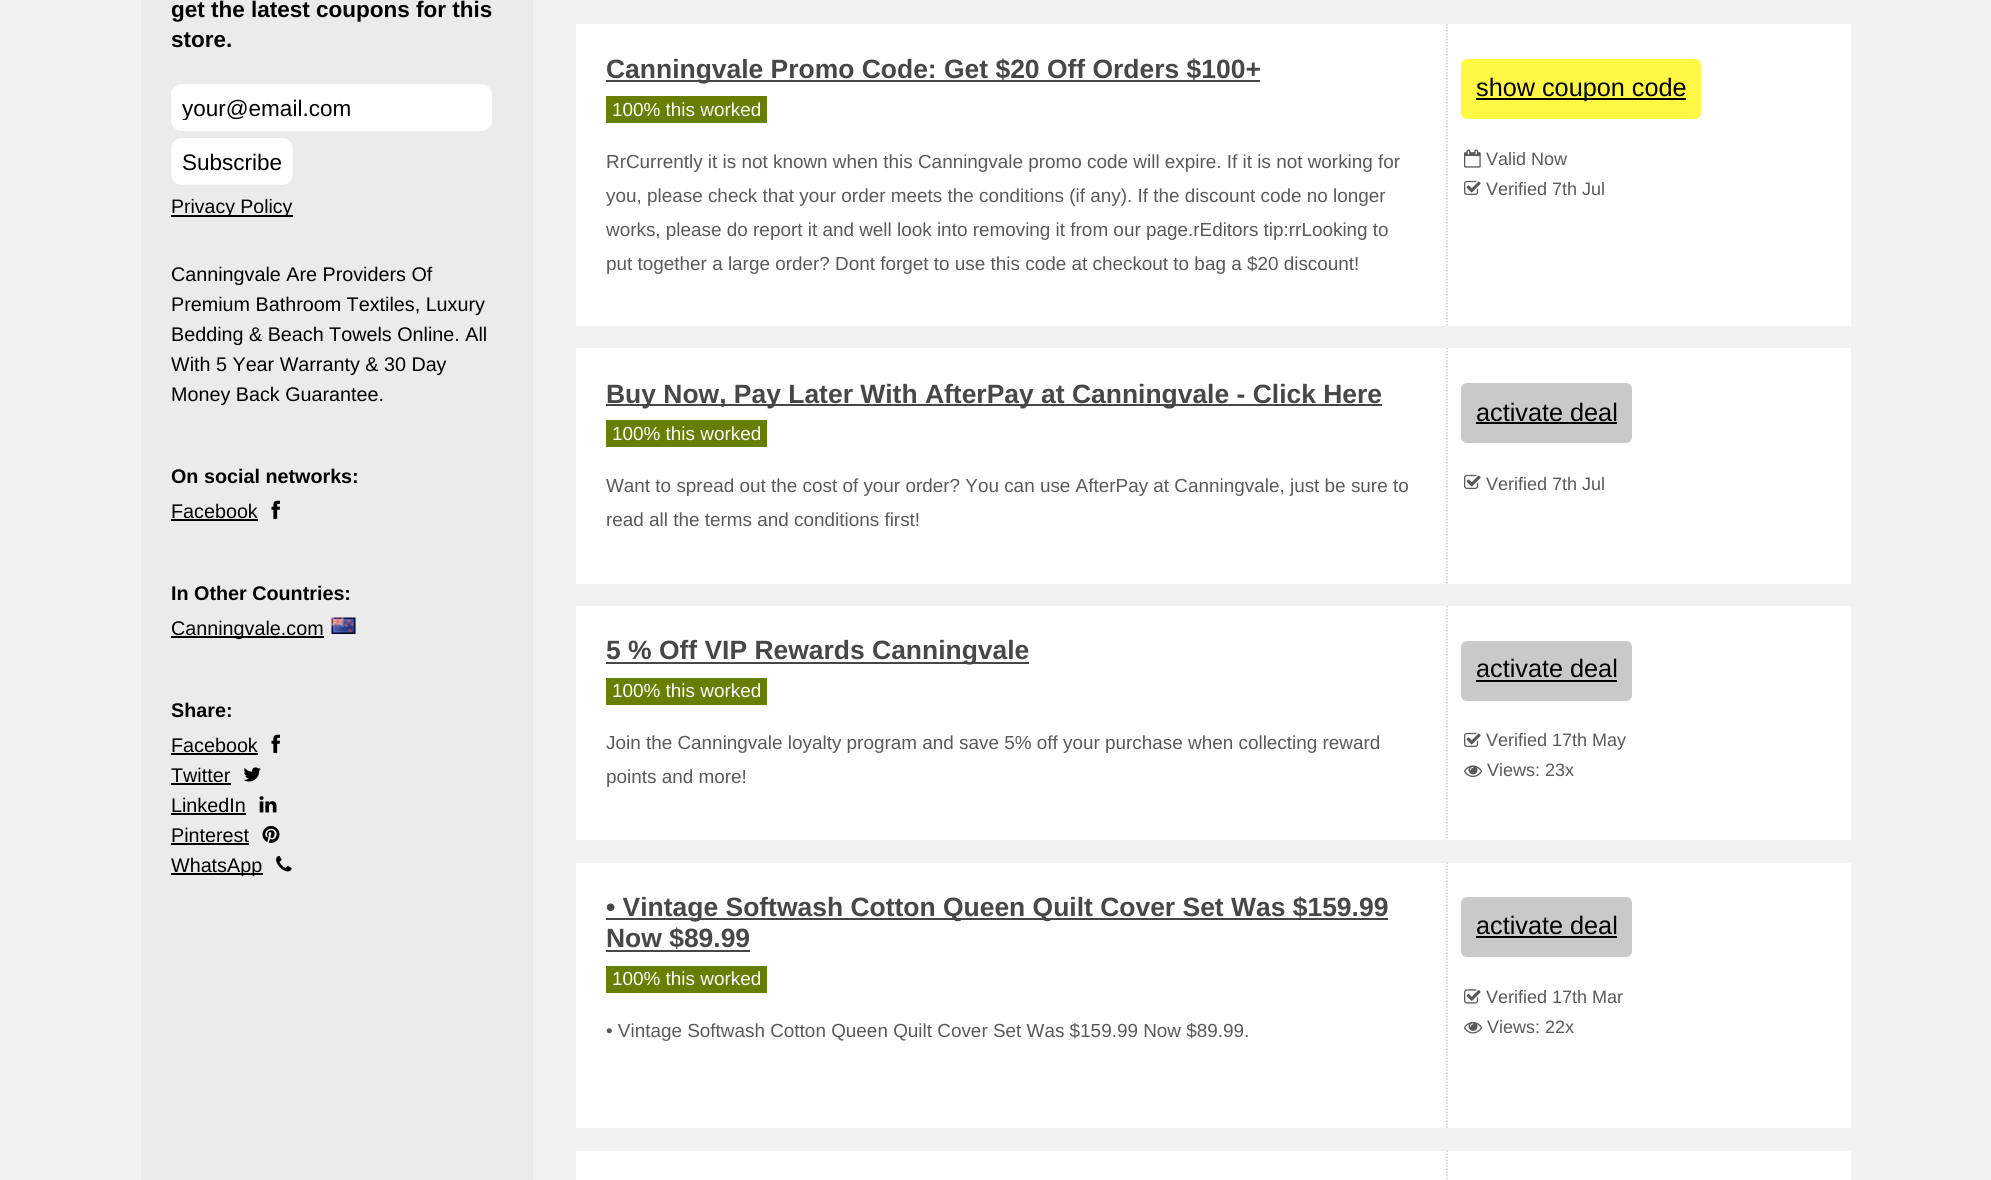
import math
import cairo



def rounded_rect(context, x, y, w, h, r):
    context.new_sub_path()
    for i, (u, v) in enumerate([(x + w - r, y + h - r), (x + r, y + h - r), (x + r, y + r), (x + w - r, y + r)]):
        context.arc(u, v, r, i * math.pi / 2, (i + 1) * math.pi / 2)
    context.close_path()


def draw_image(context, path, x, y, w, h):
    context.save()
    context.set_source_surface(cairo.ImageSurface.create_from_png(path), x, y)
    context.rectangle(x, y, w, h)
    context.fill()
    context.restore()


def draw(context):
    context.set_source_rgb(242 / 255, 242 / 255, 242 / 255)
    context.paint()
    context.set_source_rgb(235 / 255, 235 / 255, 235 / 255)
    context.rectangle(141, 0, 392, 1180)
    context.fill()
    context.set_source_rgb(1, 1, 1)
    rounded_rect(context, 172, 85, 319, 45, 10)
    context.fill_preserve()
    context.stroke()
    rounded_rect(context, 171, 138, 122, 47, 11)
    context.fill()
    context.set_source_rgb(0, 0, 0)
    context.rectangle(171, 215, 122, 2)
    context.fill()
    context.rectangle(171, 519, 87, 2)
    context.fill()
    draw_image(context, "images/1.png", 271, 500, 9, 19)
    context.rectangle(171, 636, 153, 2)
    context.fill()
    draw_image(context, "images/2.png", 331, 617, 25, 17)
    context.rectangle(171, 753, 87, 2)
    context.fill()
    draw_image(context, "images/1.png", 271, 734, 9, 19)
    context.rectangle(171, 783, 60, 2)
    context.fill()
    draw_image(context, "images/3.png", 243, 767, 18, 15)
    context.rectangle(171, 813, 75, 2)
    context.fill()
    draw_image(context, "images/4.png", 259, 796, 18, 17)
    context.rectangle(171, 843, 78, 2)
    context.fill()
    draw_image(context, "images/5.png", 262, 826, 18, 17)
    context.rectangle(171, 873, 92, 2)
    context.fill()
    draw_image(context, "images/6.png", 276, 855, 16, 17)
    context.set_source_rgb(1, 1, 1)
    context.rectangle(576, 24, 1275, 302)
    context.fill()
    context.new_path()
    context.move_to(1447, 24)
    context.line_to(1447, 325.5)
    context.set_source_rgb(204 / 255, 204 / 255, 204 / 255)
    context.set_line_width(1.5)
    context.set_dash([1.5, 1.5])
    context.stroke()
    context.set_source_rgb(71 / 255, 71 / 255, 71 / 255)
    context.rectangle(606, 80, 654, 2)
    context.fill()
    context.set_source_rgb(101 / 255, 128 / 255, 0)
    context.rectangle(606, 96, 161, 27)
    context.fill()
    context.set_source_rgb(1, 248 / 255, 69 / 255)
    rounded_rect(context, 1461, 59, 240, 60, 6)
    context.fill()
    context.set_source_rgb(0, 0, 0)
    context.rectangle(1476, 98, 210, 2)
    context.fill()
    draw_image(context, "images/7.png", 1464, 149, 17, 19)
    draw_image(context, "images/8.png", 1464, 180, 17, 15)
    context.set_source_rgb(1, 1, 1)
    context.rectangle(576, 348, 1275, 236)
    context.fill()
    context.new_path()
    context.move_to(1447, 348)
    context.line_to(1447, 583.5)
    context.set_source_rgb(204 / 255, 204 / 255, 204 / 255)
    context.stroke()
    context.set_source_rgb(71 / 255, 71 / 255, 71 / 255)
    context.rectangle(606, 404, 776, 2)
    context.fill()
    context.set_source_rgb(101 / 255, 128 / 255, 0)
    context.rectangle(606, 420, 161, 27)
    context.fill()
    context.set_source_rgb(201 / 255, 201 / 255, 201 / 255)
    rounded_rect(context, 1461, 383, 171, 60, 6)
    context.fill()
    context.set_source_rgb(0, 0, 0)
    context.rectangle(1476, 422, 141, 2)
    context.fill()
    draw_image(context, "images/8.png", 1464, 474, 17, 15)
    context.set_source_rgb(1, 1, 1)
    context.rectangle(576, 606, 1275, 234)
    context.fill()
    context.new_path()
    context.move_to(1447, 606)
    context.line_to(1447, 840)
    context.set_source_rgb(204 / 255, 204 / 255, 204 / 255)
    context.stroke()
    context.set_source_rgb(71 / 255, 71 / 255, 71 / 255)
    context.rectangle(606, 662, 423, 2)
    context.fill()
    context.set_source_rgb(101 / 255, 128 / 255, 0)
    context.rectangle(606, 678, 161, 27)
    context.fill()
    context.set_source_rgb(201 / 255, 201 / 255, 201 / 255)
    rounded_rect(context, 1461, 641, 171, 60, 6)
    context.fill()
    context.set_source_rgb(0, 0, 0)
    context.rectangle(1476, 680, 141, 2)
    context.fill()
    draw_image(context, "images/8.png", 1464, 732, 17, 15)
    draw_image(context, "images/9.png", 1464, 765, 18, 12)
    context.set_source_rgb(1, 1, 1)
    context.rectangle(576, 863, 1275, 265)
    context.fill()
    context.new_path()
    context.move_to(1447, 862.5)
    context.line_to(1447, 1128)
    context.set_source_rgb(204 / 255, 204 / 255, 204 / 255)
    context.stroke()
    context.set_source_rgb(71 / 255, 71 / 255, 71 / 255)
    context.rectangle(606, 918, 782, 2)
    context.fill()
    context.rectangle(606, 950, 144, 2)
    context.fill()
    context.set_source_rgb(101 / 255, 128 / 255, 0)
    context.rectangle(606, 966, 161, 27)
    context.fill()
    context.set_source_rgb(201 / 255, 201 / 255, 201 / 255)
    rounded_rect(context, 1461, 897, 171, 60, 6)
    context.fill()
    context.set_source_rgb(0, 0, 0)
    context.rectangle(1476, 936, 141, 2)
    context.fill()
    draw_image(context, "images/10.png", 1464, 989, 17, 15)
    draw_image(context, "images/11.png", 1464, 1021, 18, 13)
    context.set_source_rgb(1, 1, 1)
    context.rectangle(576, 1151, 1275, 29)
    context.fill()
    context.new_path()
    context.move_to(1447, 1150.5)
    context.line_to(1447, 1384.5)
    context.set_source_rgb(204 / 255, 204 / 255, 204 / 255)
    context.stroke()
    context.select_font_face("Liberation Sans", cairo.FontSlant.NORMAL, cairo.FontWeight.BOLD)
    context.set_font_size(22.5)
    context.set_source_rgb(0, 0, 0)
    context.move_to(171, 17)
    context.show_text("get the latest coupons for this")
    context.move_to(171, 47)
    context.show_text("store.")
    context.save()
    context.rectangle(182, 95, 300, 25)
    context.clip()
    context.select_font_face("Liberation Sans")
    context.move_to(182, 116)
    context.show_text("your@email.com")
    context.restore()
    context.select_font_face("Liberation Sans")
    context.move_to(182, 170)
    context.show_text("Subscribe")
    context.set_font_size(19.5)
    context.move_to(171, 213)
    context.show_text("Privacy Policy")
    context.set_font_size(19.75)
    context.move_to(171, 281)
    context.show_text("Canningvale Are Providers Of")
    context.move_to(171, 311)
    context.show_text("Premium Bathroom Textiles, Luxury")
    context.move_to(171, 341)
    context.show_text("Bedding & Beach Towels Online. All")
    context.move_to(171, 371)
    context.show_text("With 5 Year Warranty & 30 Day")
    context.move_to(171, 401)
    context.show_text("Money Back Guarantee.")
    context.select_font_face("Liberation Sans", cairo.FontSlant.NORMAL, cairo.FontWeight.BOLD)
    context.move_to(171, 483)
    context.show_text("On social networks:")
    context.select_font_face("Liberation Sans")
    context.move_to(171, 518)
    context.show_text("Facebook")
    context.select_font_face("Liberation Sans", cairo.FontSlant.NORMAL, cairo.FontWeight.BOLD)
    context.move_to(171, 600)
    context.show_text("In Other Countries:")
    context.select_font_face("Liberation Sans")
    context.move_to(171, 635)
    context.show_text("Canningvale.com")
    context.select_font_face("Liberation Sans", cairo.FontSlant.NORMAL, cairo.FontWeight.BOLD)
    context.move_to(171, 717)
    context.show_text("Share:")
    context.select_font_face("Liberation Sans")
    context.move_to(171, 752)
    context.show_text("Facebook")
    context.move_to(171, 782)
    context.show_text("Twitter")
    context.move_to(171, 812)
    context.show_text("LinkedIn")
    context.move_to(171, 842)
    context.show_text("Pinterest")
    context.move_to(171, 872)
    context.show_text("WhatsApp")
    context.select_font_face("Liberation Sans", cairo.FontSlant.NORMAL, cairo.FontWeight.BOLD)
    context.set_font_size(26.45)
    context.set_source_rgb(71 / 255, 71 / 255, 71 / 255)
    context.move_to(606, 78)
    context.show_text("Canningvale Promo Code: Get $20 Off Orders $100+")
    context.select_font_face("Liberation Sans")
    context.set_font_size(18.9)
    context.set_source_rgb(1, 1, 1)
    context.move_to(612, 116)
    context.show_text("100% this worked")
    context.set_source_rgb(89 / 255, 89 / 255, 89 / 255)
    context.move_to(606, 168)
    context.show_text("RrCurrently it is not known when this Canningvale promo code will expire. If it is not working for")
    context.move_to(606, 202)
    context.show_text("you, please check that your order meets the conditions (if any). If the discount code no longer")
    context.move_to(606, 236)
    context.show_text("works, please do report it and well look into removing it from our page.rEditors tip:rrLooking to")
    context.move_to(606, 270)
    context.show_text("put together a large order? Dont forget to use this code at checkout to bag a $20 discount!")
    context.set_font_size(25.25)
    context.set_source_rgb(0, 0, 0)
    context.move_to(1476, 96)
    context.show_text("show coupon code")
    context.set_font_size(18)
    context.set_source_rgb(89 / 255, 89 / 255, 89 / 255)
    context.move_to(1486, 165)
    context.show_text("Valid Now")
    context.move_to(1486, 195)
    context.show_text("Verified 7th Jul")
    context.select_font_face("Liberation Sans", cairo.FontSlant.NORMAL, cairo.FontWeight.BOLD)
    context.set_font_size(26.45)
    context.set_source_rgb(71 / 255, 71 / 255, 71 / 255)
    context.move_to(606, 403)
    context.show_text("Buy Now, Pay Later With AfterPay at Canningvale - Click Here")
    context.select_font_face("Liberation Sans")
    context.set_font_size(18.9)
    context.set_source_rgb(1, 1, 1)
    context.move_to(612, 440)
    context.show_text("100% this worked")
    context.set_source_rgb(89 / 255, 89 / 255, 89 / 255)
    context.move_to(606, 492)
    context.show_text("Want to spread out the cost of your order? You can use AfterPay at Canningvale, just be sure to")
    context.move_to(606, 526)
    context.show_text("read all the terms and conditions first!")
    context.set_font_size(25.25)
    context.set_source_rgb(0, 0, 0)
    context.move_to(1476, 421)
    context.show_text("activate deal")
    context.set_font_size(18)
    context.set_source_rgb(89 / 255, 89 / 255, 89 / 255)
    context.move_to(1486, 490)
    context.show_text("Verified 7th Jul")
    context.select_font_face("Liberation Sans", cairo.FontSlant.NORMAL, cairo.FontWeight.BOLD)
    context.set_font_size(26.45)
    context.set_source_rgb(71 / 255, 71 / 255, 71 / 255)
    context.move_to(606, 659)
    context.show_text("5 % Off VIP Rewards Canningvale")
    context.select_font_face("Liberation Sans")
    context.set_font_size(18.9)
    context.set_source_rgb(1, 1, 1)
    context.move_to(612, 697)
    context.show_text("100% this worked")
    context.set_source_rgb(89 / 255, 89 / 255, 89 / 255)
    context.move_to(606, 749)
    context.show_text("Join the Canningvale loyalty program and save 5% off your purchase when collecting reward")
    context.move_to(606, 783)
    context.show_text("points and more!")
    context.set_font_size(25.25)
    context.set_source_rgb(0, 0, 0)
    context.move_to(1476, 677)
    context.show_text("activate deal")
    context.set_font_size(18)
    context.set_source_rgb(89 / 255, 89 / 255, 89 / 255)
    context.move_to(1486, 746)
    context.show_text("Verified 17th May")
    context.move_to(1487, 776)
    context.show_text("Views: 23x")
    context.select_font_face("Liberation Sans", cairo.FontSlant.NORMAL, cairo.FontWeight.BOLD)
    context.set_font_size(26.45)
    context.set_source_rgb(71 / 255, 71 / 255, 71 / 255)
    context.move_to(606, 916)
    context.show_text("• Vintage Softwash Cotton Queen Quilt Cover Set Was $159.99")
    context.move_to(606, 947)
    context.show_text("Now $89.99")
    context.select_font_face("Liberation Sans")
    context.set_font_size(18.9)
    context.set_source_rgb(1, 1, 1)
    context.move_to(612, 985)
    context.show_text("100% this worked")
    context.set_source_rgb(89 / 255, 89 / 255, 89 / 255)
    context.move_to(606, 1037)
    context.show_text("• Vintage Softwash Cotton Queen Quilt Cover Set Was $159.99 Now $89.99.")
    context.set_font_size(25.25)
    context.set_source_rgb(0, 0, 0)
    context.move_to(1476, 934)
    context.show_text("activate deal")
    context.set_font_size(18)
    context.set_source_rgb(89 / 255, 89 / 255, 89 / 255)
    context.move_to(1486, 1003)
    context.show_text("Verified 17th Mar")
    context.move_to(1487, 1033)
    context.show_text("Views: 22x")


surface = cairo.ImageSurface(cairo.Format.RGB24, 1991, 1180)
context = cairo.Context(surface)
options = cairo.FontOptions()
options.set_hint_metrics(cairo.HintMetrics.OFF)
options.set_hint_style(cairo.HintStyle.NONE)
context.set_font_options(options)
context.set_miter_limit(4)
draw(context)
surface.write_to_png("out.png")
